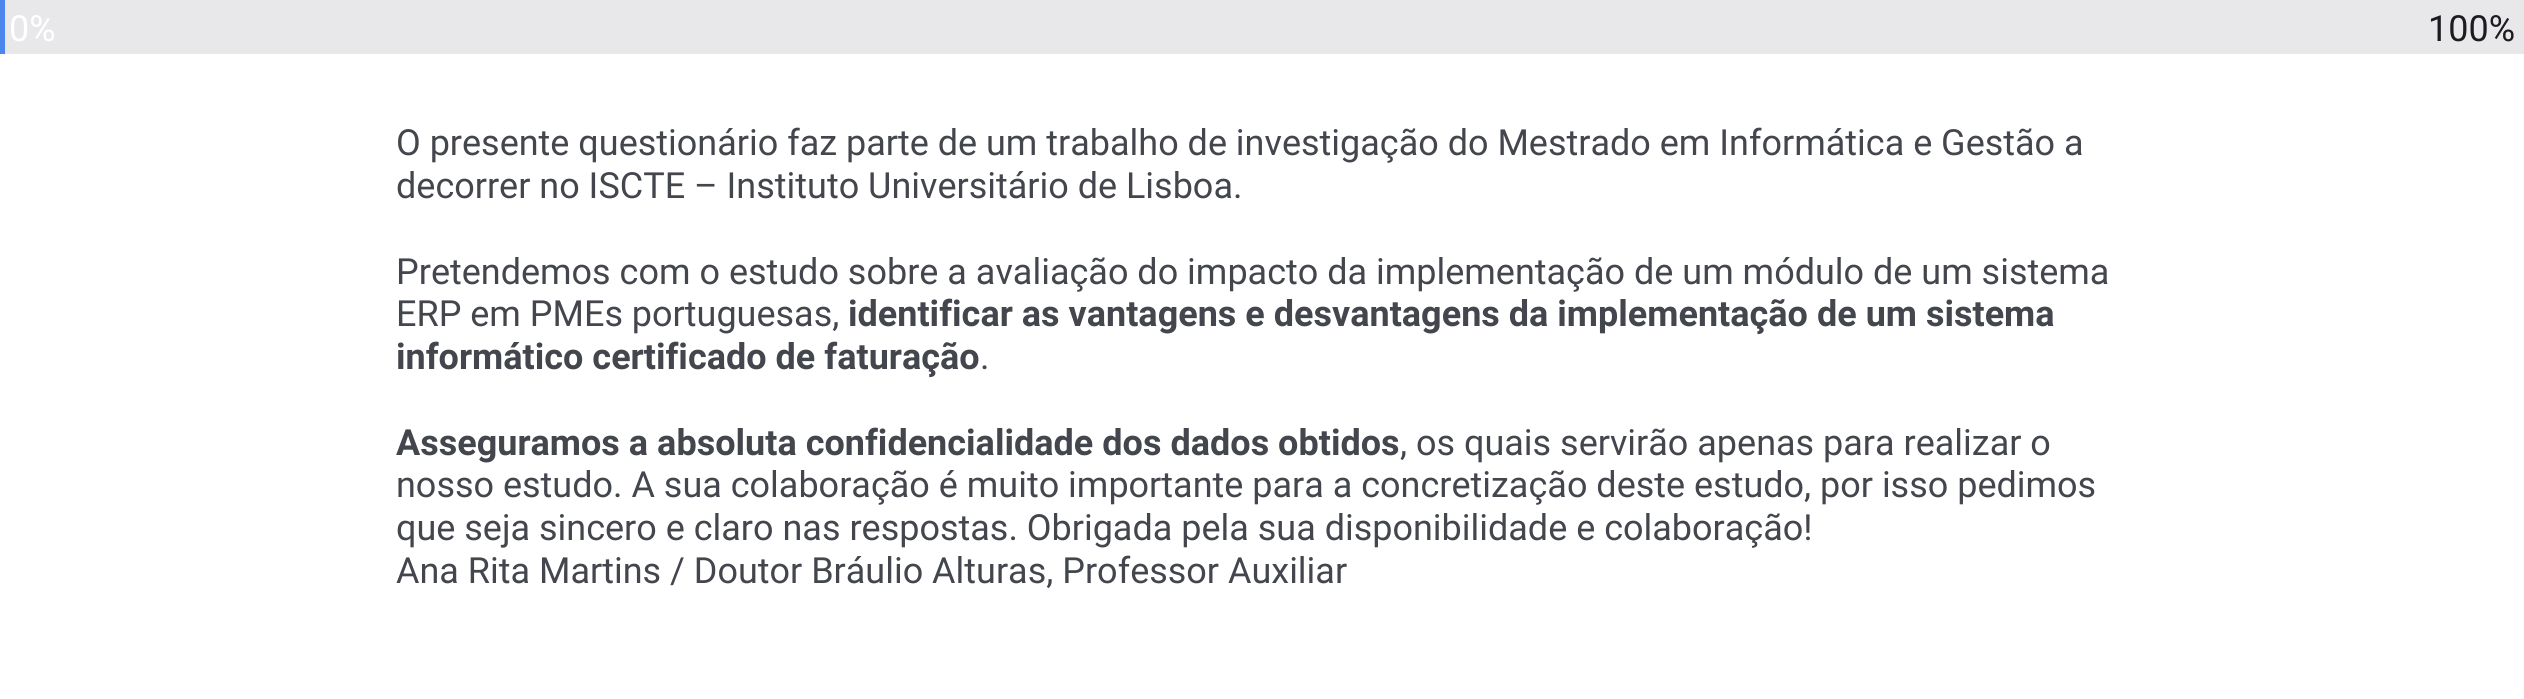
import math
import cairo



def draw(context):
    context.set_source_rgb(1, 1, 1)
    context.paint()
    context.set_source_rgb(75 / 255, 134 / 255, 238 / 255)
    context.rectangle(0, 0, 5, 54)
    context.fill()
    context.set_source_rgb(232 / 255, 232 / 255, 235 / 255)
    context.rectangle(5, 0, 2519, 54)
    context.fill()
    context.select_font_face("Roboto")
    context.set_font_size(36)
    context.set_source_rgb(1, 1, 1)
    context.move_to(9, 41)
    context.show_text("0%")
    context.set_source_rgb(27 / 255, 27 / 255, 32 / 255)
    context.move_to(2428, 41)
    context.show_text("100%")
    context.set_source_rgb(67 / 255, 70 / 255, 77 / 255)
    context.move_to(396, 155)
    context.show_text("O presente questionário faz parte de um trabalho de investigação do Mestrado em Informática e Gestão a")
    context.move_to(396, 198)
    context.show_text("decorrer no ISCTE – Instituto Universitário de Lisboa.")
    context.move_to(396, 284)
    context.show_text("Pretendemos com o estudo sobre a avaliação do impacto da implementação de um módulo de um sistema")
    context.move_to(396, 326)
    context.show_text("ERP em PMEs portuguesas,")
    context.select_font_face("Roboto", cairo.FontSlant.NORMAL, cairo.FontWeight.BOLD)
    context.move_to(848, 326)
    context.show_text("identificar as vantagens e desvantagens da implementação de um sistema")
    context.move_to(396, 369)
    context.show_text("informático certificado de faturação")
    context.select_font_face("Roboto")
    context.move_to(980, 369)
    context.show_text(".")
    context.select_font_face("Roboto", cairo.FontSlant.NORMAL, cairo.FontWeight.BOLD)
    context.move_to(396, 455)
    context.show_text("Asseguramos a absoluta confidencialidade dos dados obtidos")
    context.select_font_face("Roboto")
    context.move_to(1400, 455)
    context.show_text(", os quais servirão apenas para realizar o")
    context.move_to(396, 497)
    context.show_text("nosso estudo. A sua colaboração é muito importante para a concretização deste estudo, por isso pedimos")
    context.move_to(396, 540)
    context.show_text("que seja sincero e claro nas respostas. Obrigada pela sua disponibilidade e colaboração!")
    context.move_to(396, 583)
    context.show_text("Ana Rita Martins / Doutor Bráulio Alturas, Professor Auxiliar")


surface = cairo.ImageSurface(cairo.Format.RGB24, 2524, 699)
context = cairo.Context(surface)
options = cairo.FontOptions()
options.set_hint_metrics(cairo.HintMetrics.OFF)
options.set_hint_style(cairo.HintStyle.NONE)
context.set_font_options(options)
context.set_miter_limit(4)
draw(context)
surface.write_to_png("out.png")
